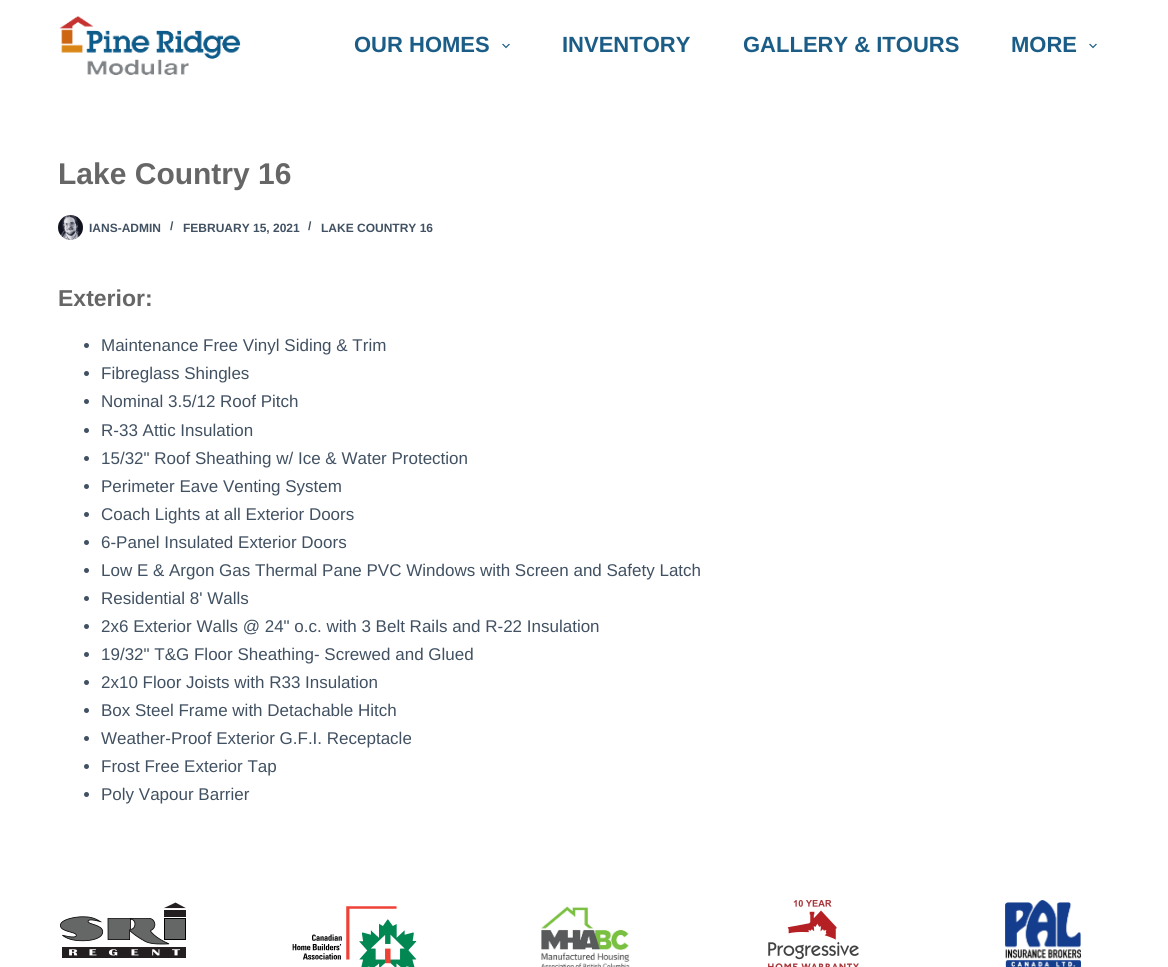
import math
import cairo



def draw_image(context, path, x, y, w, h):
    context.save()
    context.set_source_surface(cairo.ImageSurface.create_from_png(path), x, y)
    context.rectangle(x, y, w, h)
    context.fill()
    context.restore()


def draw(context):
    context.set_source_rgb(1, 1, 1)
    context.paint()
    draw_image(context, "images/1.png", 59, 15, 182, 60)
    draw_image(context, "images/2.png", 502, 43, 8, 6)
    draw_image(context, "images/2.png", 1089, 43, 8, 6)
    draw_image(context, "images/3.png", 58, 215, 25, 25)
    context.set_source_rgb(65 / 255, 81 / 255, 98 / 255)
    context.arc(86.5, 345.5, 2.5, 0, 2 * math.pi)
    context.fill()
    context.arc(86.5, 373.5, 2.5, 0, 2 * math.pi)
    context.fill()
    context.arc(86.5, 401.5, 2.5, 0, 2 * math.pi)
    context.fill()
    context.arc(86.5, 430.5, 2.5, 0, 2 * math.pi)
    context.fill()
    context.arc(86.5, 458.5, 2.5, 0, 2 * math.pi)
    context.fill()
    context.arc(86.5, 486.5, 2.5, 0, 2 * math.pi)
    context.fill()
    context.arc(86.5, 514.5, 2.5, 0, 2 * math.pi)
    context.fill()
    context.arc(86.5, 542.5, 2.5, 0, 2 * math.pi)
    context.fill()
    context.arc(86.5, 570.5, 2.5, 0, 2 * math.pi)
    context.fill()
    context.arc(86.5, 598.5, 2.5, 0, 2 * math.pi)
    context.fill()
    context.arc(86.5, 626.5, 2.5, 0, 2 * math.pi)
    context.fill()
    context.arc(86.5, 654.5, 2.5, 0, 2 * math.pi)
    context.fill()
    context.arc(86.5, 682.5, 2.5, 0, 2 * math.pi)
    context.fill()
    context.arc(86.5, 710.5, 2.5, 0, 2 * math.pi)
    context.fill()
    context.arc(86.5, 738.5, 2.5, 0, 2 * math.pi)
    context.fill()
    context.arc(86.5, 766.5, 2.5, 0, 2 * math.pi)
    context.fill()
    context.arc(86.5, 794.5, 2.5, 0, 2 * math.pi)
    context.fill()
    draw_image(context, "images/4.png", 60, 902, 126, 56)
    draw_image(context, "images/5.png", 292, 906, 125, 61)
    draw_image(context, "images/6.png", 541, 906, 89, 61)
    draw_image(context, "images/7.png", 768, 900, 91, 67)
    draw_image(context, "images/8.png", 1005, 900, 76, 67)
    context.select_font_face("Liberation Sans", cairo.FontSlant.NORMAL, cairo.FontWeight.BOLD)
    context.set_font_size(22)
    context.set_source_rgb(27 / 255, 93 / 255, 134 / 255)
    context.move_to(354, 52)
    context.show_text("OUR HOMES")
    context.move_to(562, 52)
    context.show_text("INVENTORY")
    context.move_to(743, 52)
    context.show_text("GALLERY & ITOURS")
    context.move_to(1011, 52)
    context.show_text("MORE")
    context.set_font_size(30)
    context.set_source_rgb(102 / 255, 102 / 255, 102 / 255)
    context.move_to(58, 184)
    context.show_text("Lake Country 16")
    context.set_font_size(12)
    context.set_source_rgb(65 / 255, 81 / 255, 98 / 255)
    context.move_to(89, 232)
    context.show_text("IANS-ADMIN")
    context.move_to(170, 230)
    context.show_text("/")
    context.move_to(183, 232)
    context.show_text("FEBRUARY 15, 2021")
    context.move_to(308, 230)
    context.show_text("/")
    context.move_to(321, 232)
    context.show_text("LAKE COUNTRY 16")
    context.set_font_size(23)
    context.set_source_rgb(102 / 255, 102 / 255, 102 / 255)
    context.move_to(58, 306)
    context.show_text("Exterior:")
    context.select_font_face("Liberation Sans")
    context.set_font_size(17)
    context.set_source_rgb(65 / 255, 81 / 255, 98 / 255)
    context.move_to(101, 351)
    context.show_text("Maintenance Free Vinyl Siding & Trim")
    context.move_to(101, 379)
    context.show_text("Fibreglass Shingles")
    context.move_to(101, 407)
    context.show_text("Nominal 3.5/12 Roof Pitch")
    context.move_to(101, 436)
    context.show_text("R-33 Attic Insulation")
    context.move_to(101, 464)
    context.show_text("15/32\" Roof Sheathing w/ Ice & Water Protection")
    context.move_to(101, 492)
    context.show_text("Perimeter Eave Venting System")
    context.move_to(101, 520)
    context.show_text("Coach Lights at all Exterior Doors")
    context.move_to(101, 548)
    context.show_text("6-Panel Insulated Exterior Doors")
    context.move_to(101, 576)
    context.show_text("Low E & Argon Gas Thermal Pane PVC Windows with Screen and Safety Latch")
    context.move_to(101, 604)
    context.show_text("Residential 8' Walls")
    context.move_to(101, 632)
    context.show_text("2x6 Exterior Walls @ 24\" o.c. with 3 Belt Rails and R-22 Insulation")
    context.move_to(101, 660)
    context.show_text("19/32\" T&G Floor Sheathing- Screwed and Glued")
    context.move_to(101, 688)
    context.show_text("2x10 Floor Joists with R33 Insulation")
    context.move_to(101, 716)
    context.show_text("Box Steel Frame with Detachable Hitch")
    context.move_to(101, 744)
    context.show_text("Weather-Proof Exterior G.F.I. Receptacle")
    context.move_to(101, 772)
    context.show_text("Frost Free Exterior Tap")
    context.move_to(101, 800)
    context.show_text("Poly Vapour Barrier")


surface = cairo.ImageSurface(cairo.Format.RGB24, 1168, 967)
context = cairo.Context(surface)
options = cairo.FontOptions()
options.set_hint_metrics(cairo.HintMetrics.OFF)
options.set_hint_style(cairo.HintStyle.NONE)
context.set_font_options(options)
context.set_miter_limit(4)
draw(context)
surface.write_to_png("out.png")
